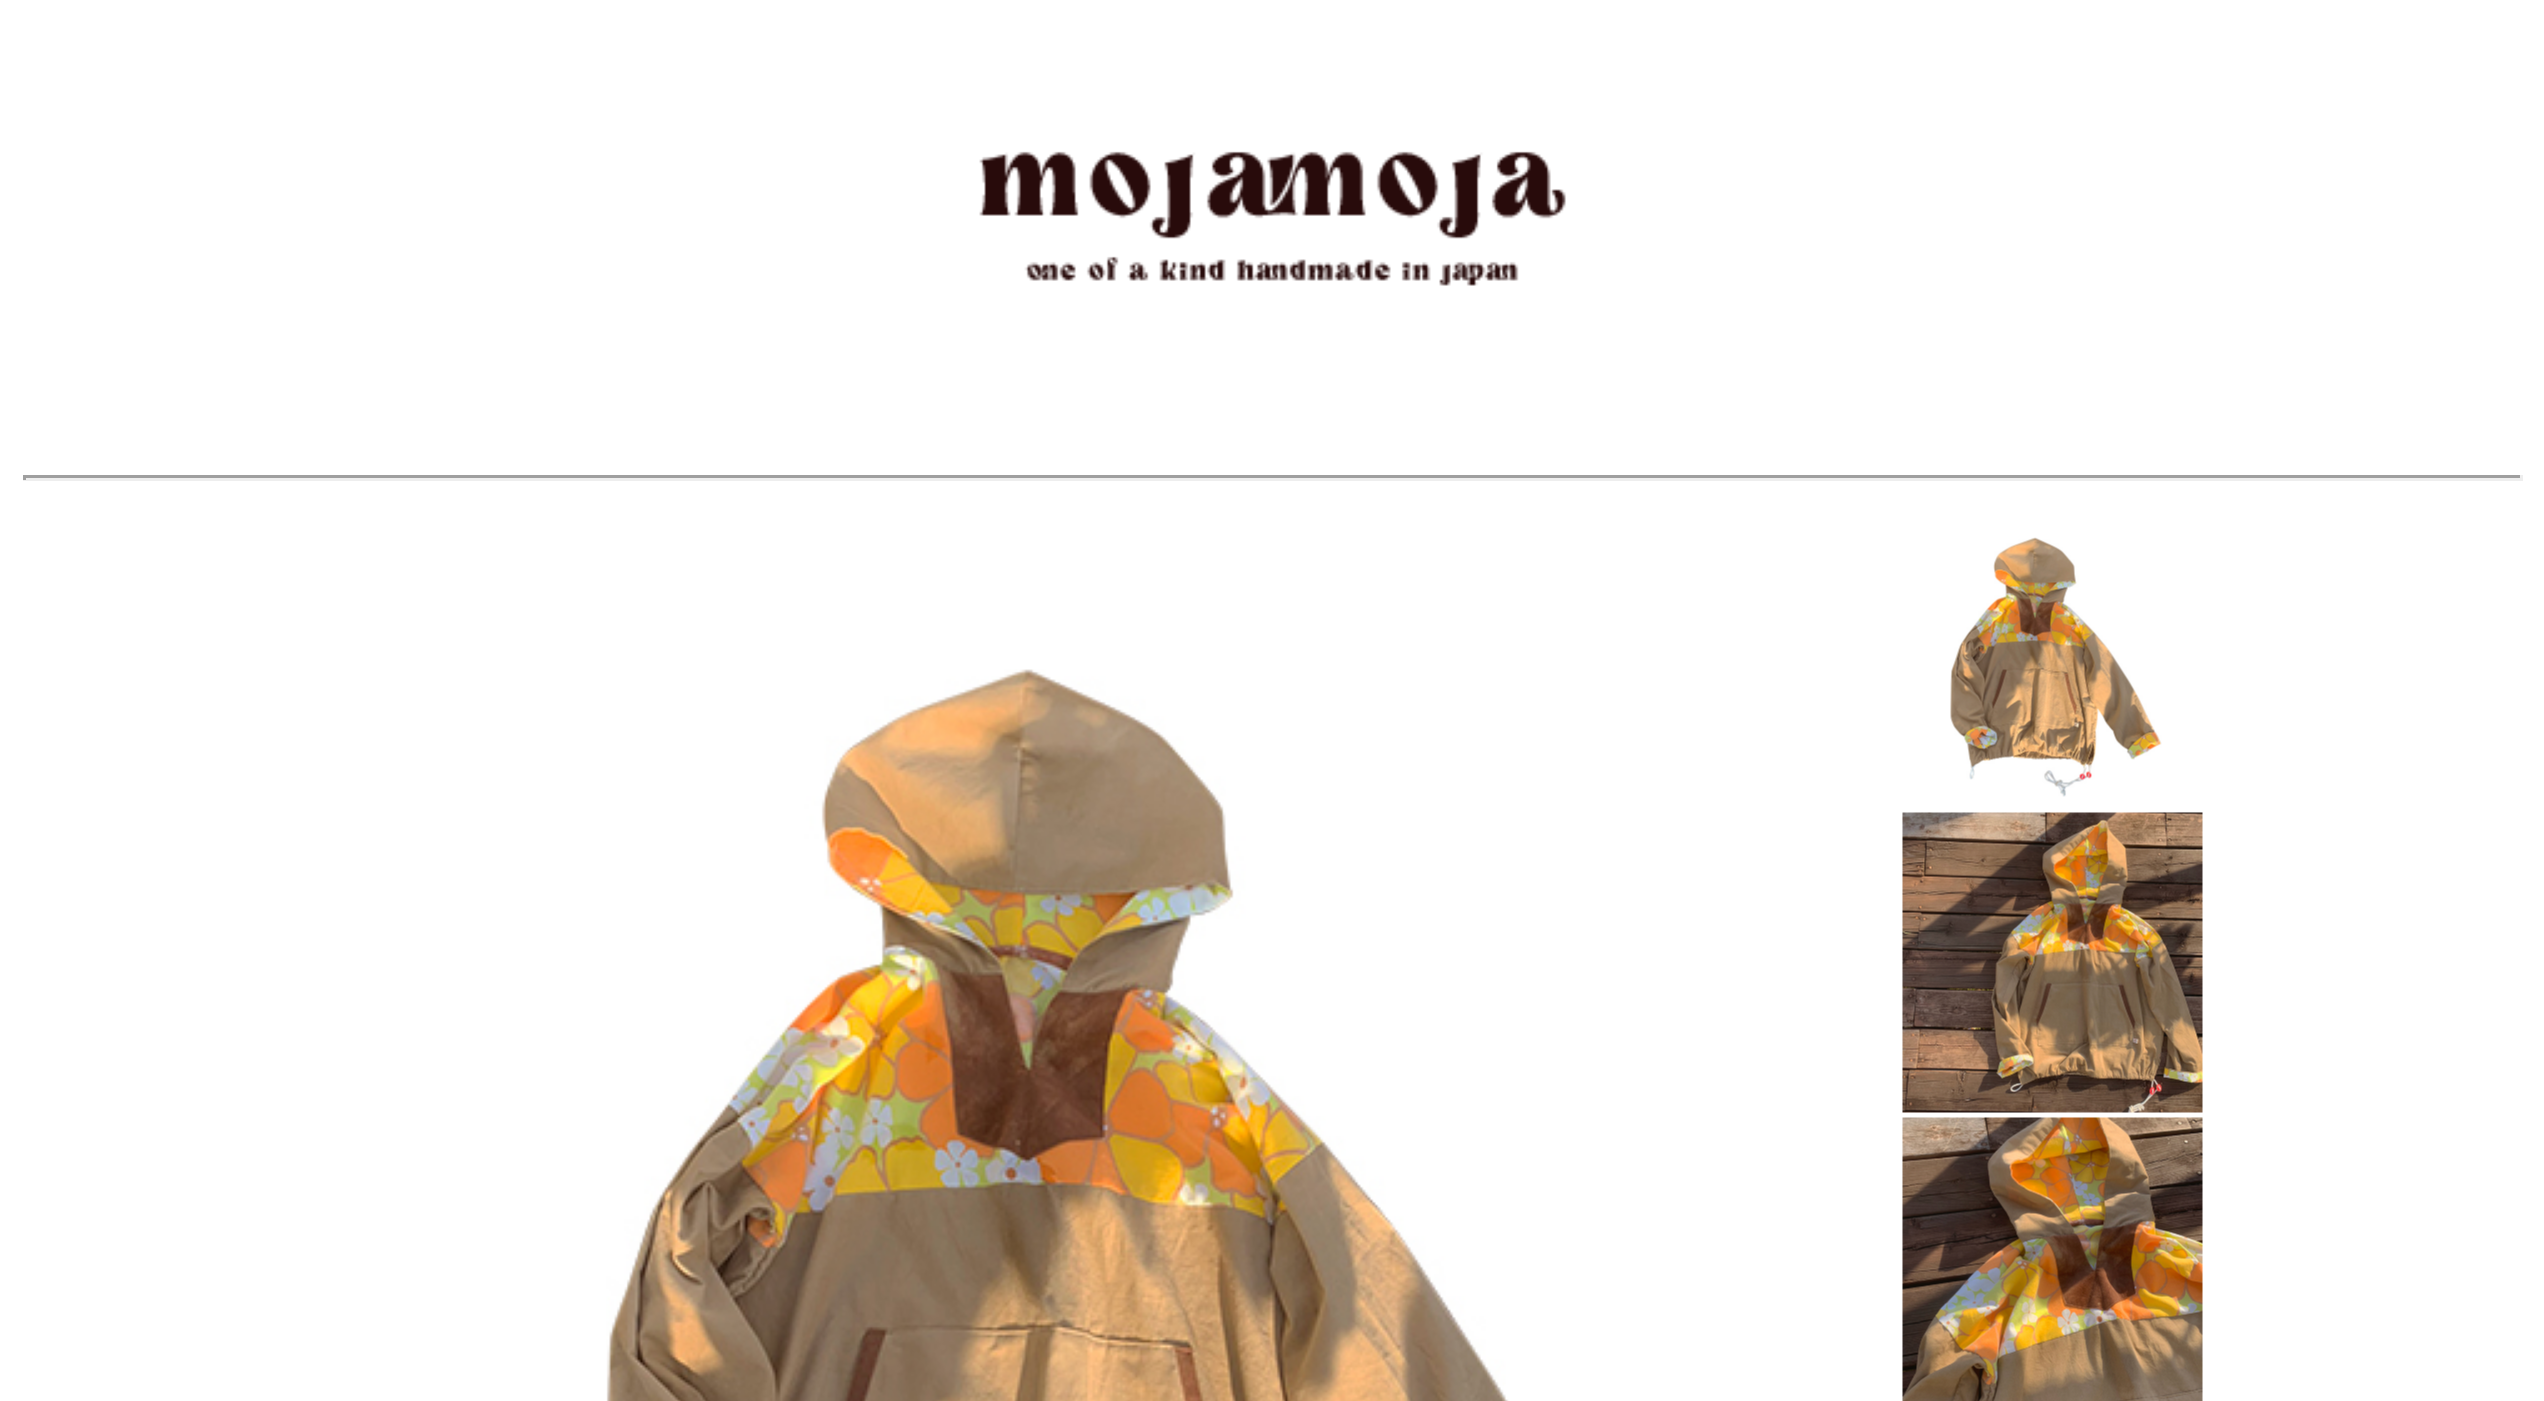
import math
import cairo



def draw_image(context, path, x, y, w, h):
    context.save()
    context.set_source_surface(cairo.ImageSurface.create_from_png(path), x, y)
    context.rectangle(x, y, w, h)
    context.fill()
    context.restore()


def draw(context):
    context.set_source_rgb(1, 1, 1)
    context.paint()
    draw_image(context, "images/1.png", 979, 151, 587, 135)
    context.set_source_rgb(159 / 255, 159 / 255, 159 / 255)
    context.rectangle(23, 475, 2500, 3)
    context.fill()
    context.set_source_rgb(238 / 255, 238 / 255, 238 / 255)
    context.rectangle(2520, 475, 3, 5)
    context.fill()
    context.rectangle(23, 478, 2500, 3)
    context.fill()
    context.set_source_rgb(159 / 255, 159 / 255, 159 / 255)
    context.rectangle(23, 475, 3, 5)
    context.fill()
    draw_image(context, "images/2.png", 606, 669, 903, 732)
    draw_image(context, "images/3.png", 1950, 537, 212, 260)
    draw_image(context, "images/4.png", 1902, 812, 301, 301)
    draw_image(context, "images/5.png", 1902, 1117, 301, 284)


surface = cairo.ImageSurface(cairo.Format.RGB24, 2544, 1401)
context = cairo.Context(surface)
options = cairo.FontOptions()
options.set_hint_metrics(cairo.HintMetrics.OFF)
options.set_hint_style(cairo.HintStyle.NONE)
context.set_font_options(options)
context.set_miter_limit(4)
draw(context)
surface.write_to_png("out.png")
